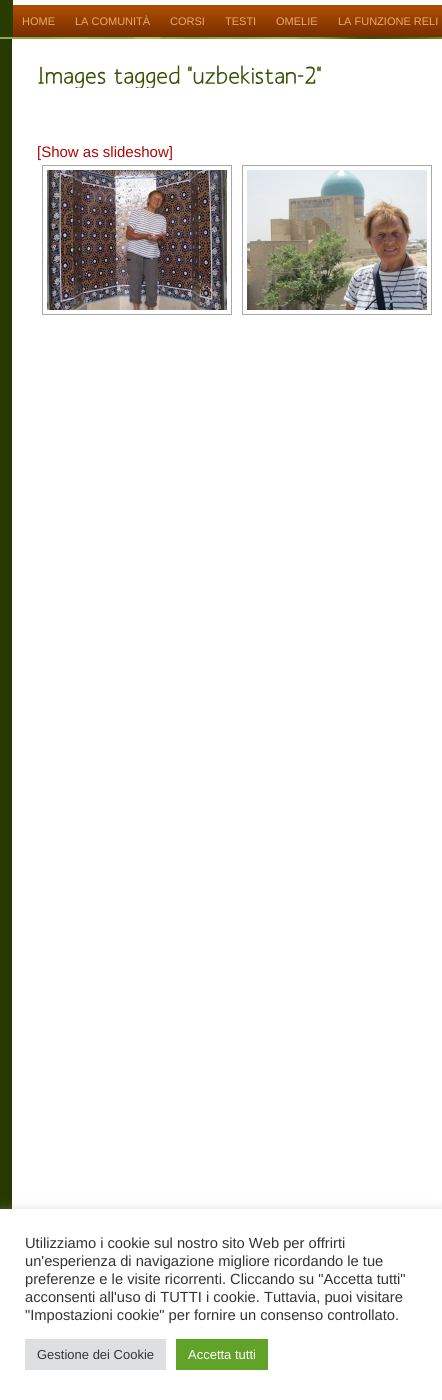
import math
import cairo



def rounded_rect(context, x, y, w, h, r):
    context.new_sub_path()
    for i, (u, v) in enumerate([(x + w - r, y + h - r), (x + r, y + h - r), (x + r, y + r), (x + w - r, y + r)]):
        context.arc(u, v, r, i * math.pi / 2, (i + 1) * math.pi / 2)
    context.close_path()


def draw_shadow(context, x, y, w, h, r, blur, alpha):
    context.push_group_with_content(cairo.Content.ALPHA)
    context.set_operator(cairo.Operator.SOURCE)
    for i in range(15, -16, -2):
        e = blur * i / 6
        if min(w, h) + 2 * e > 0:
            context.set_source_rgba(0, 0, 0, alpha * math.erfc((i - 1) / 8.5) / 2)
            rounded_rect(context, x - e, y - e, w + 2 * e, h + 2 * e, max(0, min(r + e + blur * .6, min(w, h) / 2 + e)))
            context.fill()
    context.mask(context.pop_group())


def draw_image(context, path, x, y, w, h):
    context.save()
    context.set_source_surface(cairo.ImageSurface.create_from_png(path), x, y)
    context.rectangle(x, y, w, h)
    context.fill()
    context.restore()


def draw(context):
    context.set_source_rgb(1, 1, 1)
    context.paint()
    draw_image(context, "images/1.png", 0, 37, 442, 2)
    draw_image(context, "images/2.png", 0, 0, 442, 5)
    draw_image(context, "images/3.png", 0, 5, 442, 32)
    draw_image(context, "images/4.png", 0, 39, 442, 1170)
    draw_image(context, "images/5.png", 38, 66, 68, 22)
    draw_image(context, "images/6.png", 114, 65, 66, 23)
    draw_image(context, "images/7.png", 188, 65, 133, 19)
    context.rectangle(42.5, 165.5, 189, 149)
    context.set_source_rgb(169 / 255, 169 / 255, 169 / 255)
    context.set_line_width(1)
    context.stroke()
    draw_image(context, "images/8.png", 47, 170, 180, 140)
    context.rectangle(242.5, 165.5, 189, 149)
    context.stroke()
    draw_image(context, "images/9.png", 247, 170, 180, 140)
    context.set_source_rgb(172 / 255, 171 / 255, 171 / 255)
    draw_shadow(context, 0, 1208, 442, 191, 0, 5, 0.3)
    context.set_source_rgb(1, 1, 1)
    context.rectangle(0, 1209, 442, 191)
    context.fill()
    context.set_source_rgb(222 / 255, 223 / 255, 224 / 255)
    context.rectangle(25, 1339, 141, 31)
    context.fill()
    context.set_source_rgb(97 / 255, 162 / 255, 41 / 255)
    context.rectangle(176, 1339, 92, 31)
    context.fill()
    context.select_font_face("Liberation Sans")
    context.set_font_size(11)
    context.set_source_rgb(231 / 255, 168 / 255, 120 / 255)
    context.move_to(22, 25)
    context.show_text("HOME")
    context.move_to(75, 25)
    context.show_text("LA COMUNITÀ")
    context.move_to(170, 25)
    context.show_text("CORSI")
    context.move_to(225, 25)
    context.show_text("TESTI")
    context.move_to(276, 25)
    context.show_text("OMELIE")
    context.move_to(338, 25)
    context.show_text("LA FUNZIONE RELI")
    context.set_font_size(15)
    context.set_source_rgb(172 / 255, 6 / 255, 4 / 255)
    context.move_to(37, 157)
    context.show_text("[Show as slideshow]")
    context.set_font_size(14.7)
    context.set_source_rgb(51 / 255, 51 / 255, 51 / 255)
    context.move_to(25, 1248)
    context.show_text("Utilizziamo i cookie sul nostro sito Web per offrirti")
    context.move_to(25, 1266)
    context.show_text("un'esperienza di navigazione migliore ricordando le tue")
    context.move_to(25, 1284)
    context.show_text("preferenze e le visite ricorrenti. Cliccando su \"Accetta tutti\"")
    context.move_to(25, 1302)
    context.show_text("acconsenti all'uso di TUTTI i cookie. Tuttavia, puoi visitare")
    context.move_to(25, 1320)
    context.show_text("\"Impostazioni cookie\" per fornire un consenso controllato.")
    context.set_font_size(13)
    context.move_to(37, 1359)
    context.show_text("Gestione dei Cookie")
    context.set_source_rgb(1, 1, 1)
    context.move_to(188, 1359)
    context.show_text("Accetta tutti")


surface = cairo.ImageSurface(cairo.Format.RGB24, 442, 1400)
context = cairo.Context(surface)
options = cairo.FontOptions()
options.set_hint_metrics(cairo.HintMetrics.OFF)
options.set_hint_style(cairo.HintStyle.NONE)
context.set_font_options(options)
context.set_miter_limit(4)
draw(context)
surface.write_to_png("out.png")
